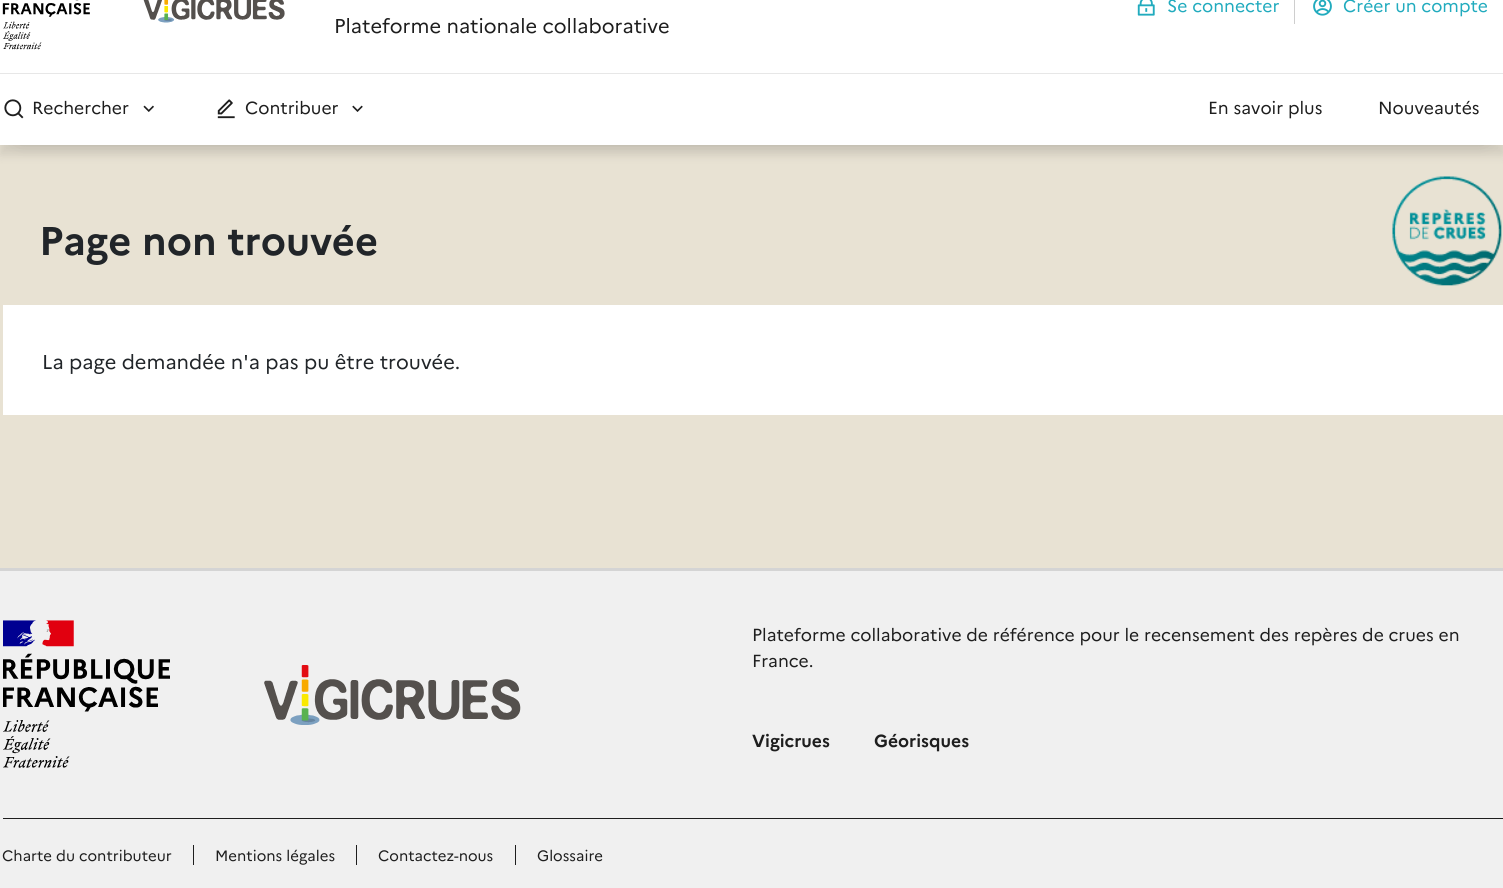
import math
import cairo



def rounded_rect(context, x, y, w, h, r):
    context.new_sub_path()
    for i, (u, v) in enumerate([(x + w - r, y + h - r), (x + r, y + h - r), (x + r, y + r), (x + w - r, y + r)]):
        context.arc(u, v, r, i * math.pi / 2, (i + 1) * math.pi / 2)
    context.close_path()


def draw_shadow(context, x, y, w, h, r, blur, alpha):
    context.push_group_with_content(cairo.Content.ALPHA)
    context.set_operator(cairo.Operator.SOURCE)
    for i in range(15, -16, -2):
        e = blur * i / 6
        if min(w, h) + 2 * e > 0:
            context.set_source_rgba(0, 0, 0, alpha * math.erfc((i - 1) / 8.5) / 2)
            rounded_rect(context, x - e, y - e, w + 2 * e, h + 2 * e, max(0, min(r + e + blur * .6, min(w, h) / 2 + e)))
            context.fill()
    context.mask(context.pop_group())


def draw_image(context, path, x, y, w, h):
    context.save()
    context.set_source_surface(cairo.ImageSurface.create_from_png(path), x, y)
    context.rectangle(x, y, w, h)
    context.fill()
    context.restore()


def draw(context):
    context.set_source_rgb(232 / 255, 226 / 255, 211 / 255)
    context.paint()
    context.set_source_rgb(0, 0, 0)
    draw_shadow(context, 20, -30, 1464, 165, 0, 10, 0.32)
    draw_shadow(context, 0, -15, 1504, 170, 0, 5, 0.1)
    context.set_source_rgb(1, 1, 1)
    context.rectangle(0, 0, 1503, 73)
    context.fill()
    context.set_source_rgb(206 / 255, 206 / 255, 206 / 255)
    context.rectangle(1294, 0, 1, 24)
    context.fill()
    draw_image(context, "images/1.png", 1137, 0, 18, 16)
    draw_image(context, "images/2.png", 1313, 0, 19, 16)
    draw_image(context, "images/3.png", 2, 0, 88, 50)
    draw_image(context, "images/4.png", 143, 0, 142, 23)
    context.set_source_rgb(1, 1, 1)
    context.rectangle(0, 74, 1503, 71)
    context.fill()
    context.set_source_rgb(231 / 255, 231 / 255, 231 / 255)
    context.rectangle(0, 73, 1503, 1)
    context.fill()
    draw_image(context, "images/5.png", 4, 99, 20, 20)
    draw_image(context, "images/6.png", 143, 105, 11, 7)
    draw_image(context, "images/7.png", 217, 99, 18, 20)
    draw_image(context, "images/8.png", 352, 105, 11, 7)
    draw_image(context, "images/9.png", 1392, 176, 110, 110)
    context.set_source_rgb(1, 1, 1)
    context.rectangle(3, 305, 1500, 110)
    context.fill()
    context.set_source_rgb(240 / 255, 240 / 255, 240 / 255)
    context.rectangle(0, 571, 1503, 317)
    context.fill()
    context.set_source_rgb(212 / 255, 212 / 255, 212 / 255)
    context.rectangle(0, 568, 1503, 3)
    context.fill()
    draw_image(context, "images/10.png", 3, 620, 167, 148)
    draw_image(context, "images/11.png", 264, 665, 257, 60)
    context.set_source_rgb(30 / 255, 30 / 255, 30 / 255)
    context.rectangle(3, 818, 1500, 1)
    context.fill()
    context.rectangle(193, 845, 1, 20)
    context.fill()
    context.rectangle(356, 845, 1, 20)
    context.fill()
    context.rectangle(515, 845, 1, 20)
    context.fill()
    context.select_font_face("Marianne")
    context.set_font_size(17.5)
    context.set_source_rgb(33 / 255, 171 / 255, 190 / 255)
    context.move_to(1167, 12)
    context.show_text("Se connecter")
    context.move_to(1343, 12)
    context.show_text("Créer un compte")
    context.set_font_size(20)
    context.set_source_rgb(30 / 255, 30 / 255, 30 / 255)
    context.move_to(334, 33)
    context.show_text("Plateforme nationale collaborative")
    context.set_font_size(17.5)
    context.move_to(32, 114)
    context.show_text("Rechercher")
    context.move_to(245, 114)
    context.show_text("Contribuer")
    context.move_to(1208, 114)
    context.show_text("En savoir plus")
    context.move_to(1378, 114)
    context.show_text("Nouveautés")
    context.select_font_face("Marianne", cairo.FontSlant.NORMAL, cairo.FontWeight.BOLD)
    context.set_font_size(40)
    context.set_source_rgb(33 / 255, 37 / 255, 41 / 255)
    context.move_to(39, 255)
    context.show_text("Page non trouvée")
    context.select_font_face("Marianne")
    context.set_font_size(20)
    context.move_to(42, 369)
    context.show_text("La page demandée n'a pas pu être trouvée.")
    context.set_font_size(17.5)
    context.set_source_rgb(30 / 255, 30 / 255, 30 / 255)
    context.move_to(752, 641)
    context.show_text("Plateforme collaborative de référence pour le recensement des repères de crues en")
    context.move_to(752, 667)
    context.show_text("France.")
    context.select_font_face("Marianne", cairo.FontSlant.NORMAL, cairo.FontWeight.BOLD)
    context.move_to(752, 747)
    context.show_text("Vigicrues")
    context.move_to(874, 747)
    context.show_text("Géorisques")
    context.select_font_face("Marianne")
    context.set_font_size(15)
    context.move_to(2, 861)
    context.show_text("Charte du contributeur")
    context.move_to(215, 861)
    context.show_text("Mentions légales")
    context.move_to(378, 861)
    context.show_text("Contactez-nous")
    context.move_to(537, 861)
    context.show_text("Glossaire")


surface = cairo.ImageSurface(cairo.Format.RGB24, 1503, 888)
context = cairo.Context(surface)
options = cairo.FontOptions()
options.set_hint_metrics(cairo.HintMetrics.OFF)
options.set_hint_style(cairo.HintStyle.NONE)
context.set_font_options(options)
context.set_miter_limit(4)
draw(context)
surface.write_to_png("out.png")
